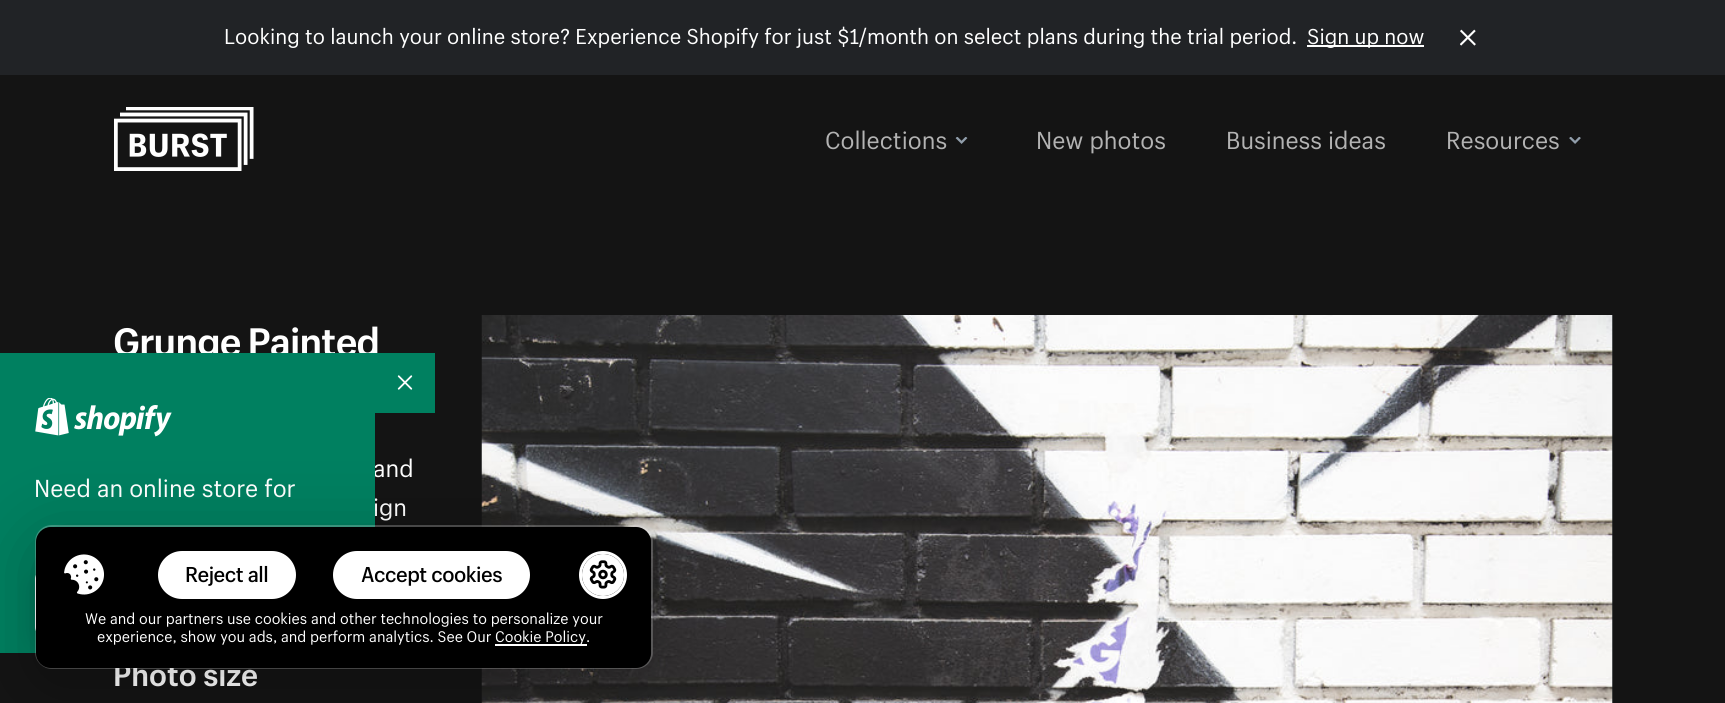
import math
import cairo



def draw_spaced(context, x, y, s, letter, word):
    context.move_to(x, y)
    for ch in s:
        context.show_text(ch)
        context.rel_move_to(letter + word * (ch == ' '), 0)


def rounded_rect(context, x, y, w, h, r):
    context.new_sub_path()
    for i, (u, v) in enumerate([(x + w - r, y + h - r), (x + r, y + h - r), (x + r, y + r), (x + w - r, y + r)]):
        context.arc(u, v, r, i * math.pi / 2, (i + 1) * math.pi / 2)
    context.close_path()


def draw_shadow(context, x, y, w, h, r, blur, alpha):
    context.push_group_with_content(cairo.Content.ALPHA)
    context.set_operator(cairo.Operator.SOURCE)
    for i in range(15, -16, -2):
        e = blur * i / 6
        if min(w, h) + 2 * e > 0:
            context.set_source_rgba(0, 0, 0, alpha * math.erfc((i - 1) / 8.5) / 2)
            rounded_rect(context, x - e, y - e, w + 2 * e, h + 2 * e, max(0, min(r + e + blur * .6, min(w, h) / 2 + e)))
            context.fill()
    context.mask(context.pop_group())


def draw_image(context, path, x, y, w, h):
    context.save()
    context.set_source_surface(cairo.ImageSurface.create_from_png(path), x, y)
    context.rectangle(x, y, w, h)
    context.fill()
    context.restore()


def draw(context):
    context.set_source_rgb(20 / 255, 20 / 255, 20 / 255)
    context.paint()
    context.set_source_rgb(33 / 255, 35 / 255, 38 / 255)
    context.rectangle(0, 0, 1725, 75)
    context.fill()
    context.set_source_rgb(1, 1, 1)
    context.rectangle(1307, 45, 117, 2)
    context.fill()
    draw_image(context, "images/1.png", 1460, 29, 16, 17)
    draw_image(context, "images/2.png", 114, 107, 140, 64)
    draw_image(context, "images/3.png", 955, 137, 13, 7)
    draw_image(context, "images/4.png", 1569, 137, 12, 7)
    context.set_source_rgb(22 / 255, 25 / 255, 27 / 255)
    context.rectangle(1612, 315, 1, 388)
    context.fill()
    draw_image(context, "images/5.png", 481, 315, 1132, 388)
    context.select_font_face("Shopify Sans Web")
    context.set_font_size(21)
    context.set_source_rgb(1, 1, 1)
    context.move_to(224, 44)
    context.show_text("Looking to launch your online store? Experience Shopify for just $1/month on select plans during the trial period.")
    context.move_to(1307, 44)
    context.show_text("Sign up now")
    context.set_font_size(24)
    context.set_source_rgb(179 / 255, 179 / 255, 179 / 255)
    context.move_to(825, 149)
    context.show_text("Collections")
    context.move_to(1036, 149)
    context.show_text("New photos")
    context.move_to(1226, 149)
    context.show_text("Business ideas")
    context.move_to(1446, 149)
    context.show_text("Resources")
    context.select_font_face("Shopify Sans Web", cairo.FontSlant.NORMAL, cairo.FontWeight.BOLD)
    context.set_font_size(38.75)
    context.set_source_rgb(1, 1, 1)
    draw_spaced(context, 113, 356, "Grunge Painted", -0.75, -1)
    context.select_font_face("Shopify Sans Web")
    context.set_font_size(24)
    context.move_to(373, 477)
    context.show_text("and")
    context.move_to(373, 516)
    context.show_text("ign")
    context.select_font_face("Shopify Sans Web", cairo.FontSlant.NORMAL, cairo.FontWeight.BOLD)
    context.set_font_size(30.5)
    context.move_to(113, 686)
    context.show_text("Photo size")
    context.set_source_rgb(0, 128 / 255, 96 / 255)
    context.rectangle(375, 353, 60, 60)
    context.fill()
    draw_image(context, "images/6.png", 397, 375, 16, 15)
    context.rectangle(0, 353, 375, 300)
    context.fill()
    draw_image(context, "images/7.png", 35, 398, 137, 39)
    context.select_font_face("Shopify Sans Web")
    context.set_font_size(24)
    context.set_source_rgb(1, 1, 1)
    context.move_to(34, 497)
    context.show_text("Need an online store for")
    context.set_source_rgb(0, 0, 0)
    draw_shadow(context, 35, 578, 307, 66, 9, 11, 0.15)
    context.set_source_rgb(1, 1, 1)
    rounded_rect(context, 35, 570, 307, 66, 9)
    context.fill()
    rounded_rect(context, 36, 526, 616, 142, 16)
    context.set_source_rgba(1, 1, 1, 0.25)
    context.stroke()
    context.set_source_rgb(0, 0, 0)
    draw_shadow(context, 36, 542, 615, 141, 15, 37.5, 0.25)
    context.set_source_rgb(0, 0, 0)
    rounded_rect(context, 36, 527, 615, 141, 15)
    context.fill()
    draw_image(context, "images/8.png", 64, 554, 40, 41)
    context.set_source_rgb(1, 1, 1)
    rounded_rect(context, 159.5, 552.5, 135, 45, 22.5)
    context.fill_preserve()
    context.set_line_width(3)
    context.stroke()
    context.select_font_face("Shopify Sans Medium")
    context.set_font_size(21)
    context.set_source_rgb(0, 0, 0)
    draw_spaced(context, 185, 582, "Reject all", -0.5, 0)
    context.set_source_rgb(1, 1, 1)
    rounded_rect(context, 334.5, 552.5, 194, 45, 22.5)
    context.fill_preserve()
    context.stroke()
    context.set_source_rgb(0, 0, 0)
    draw_spaced(context, 361, 582, "Accept cookies", -0.5, 0)
    context.new_path()
    context.arc(603, 575, 22.5, 0, 2 * math.pi)
    context.set_source_rgb(1, 1, 1)
    context.stroke()
    context.arc(603, 575, 21, 0, 2 * math.pi)
    context.fill()
    draw_image(context, "images/9.png", 589, 560, 28, 29)
    context.select_font_face("Shopify Sans Web")
    context.set_font_size(15)
    context.move_to(85, 624)
    context.show_text("We and our partners use cookies and other technologies to personalize your")
    context.move_to(97, 642)
    context.show_text("experience, show you ads, and perform analytics. See Our")
    context.rectangle(495, 644, 92, 2)
    context.fill()
    context.move_to(495, 642)
    context.show_text("Cookie Policy.")


surface = cairo.ImageSurface(cairo.Format.RGB24, 1725, 703)
context = cairo.Context(surface)
options = cairo.FontOptions()
options.set_hint_metrics(cairo.HintMetrics.OFF)
options.set_hint_style(cairo.HintStyle.NONE)
context.set_font_options(options)
context.set_miter_limit(4)
draw(context)
surface.write_to_png("out.png")
